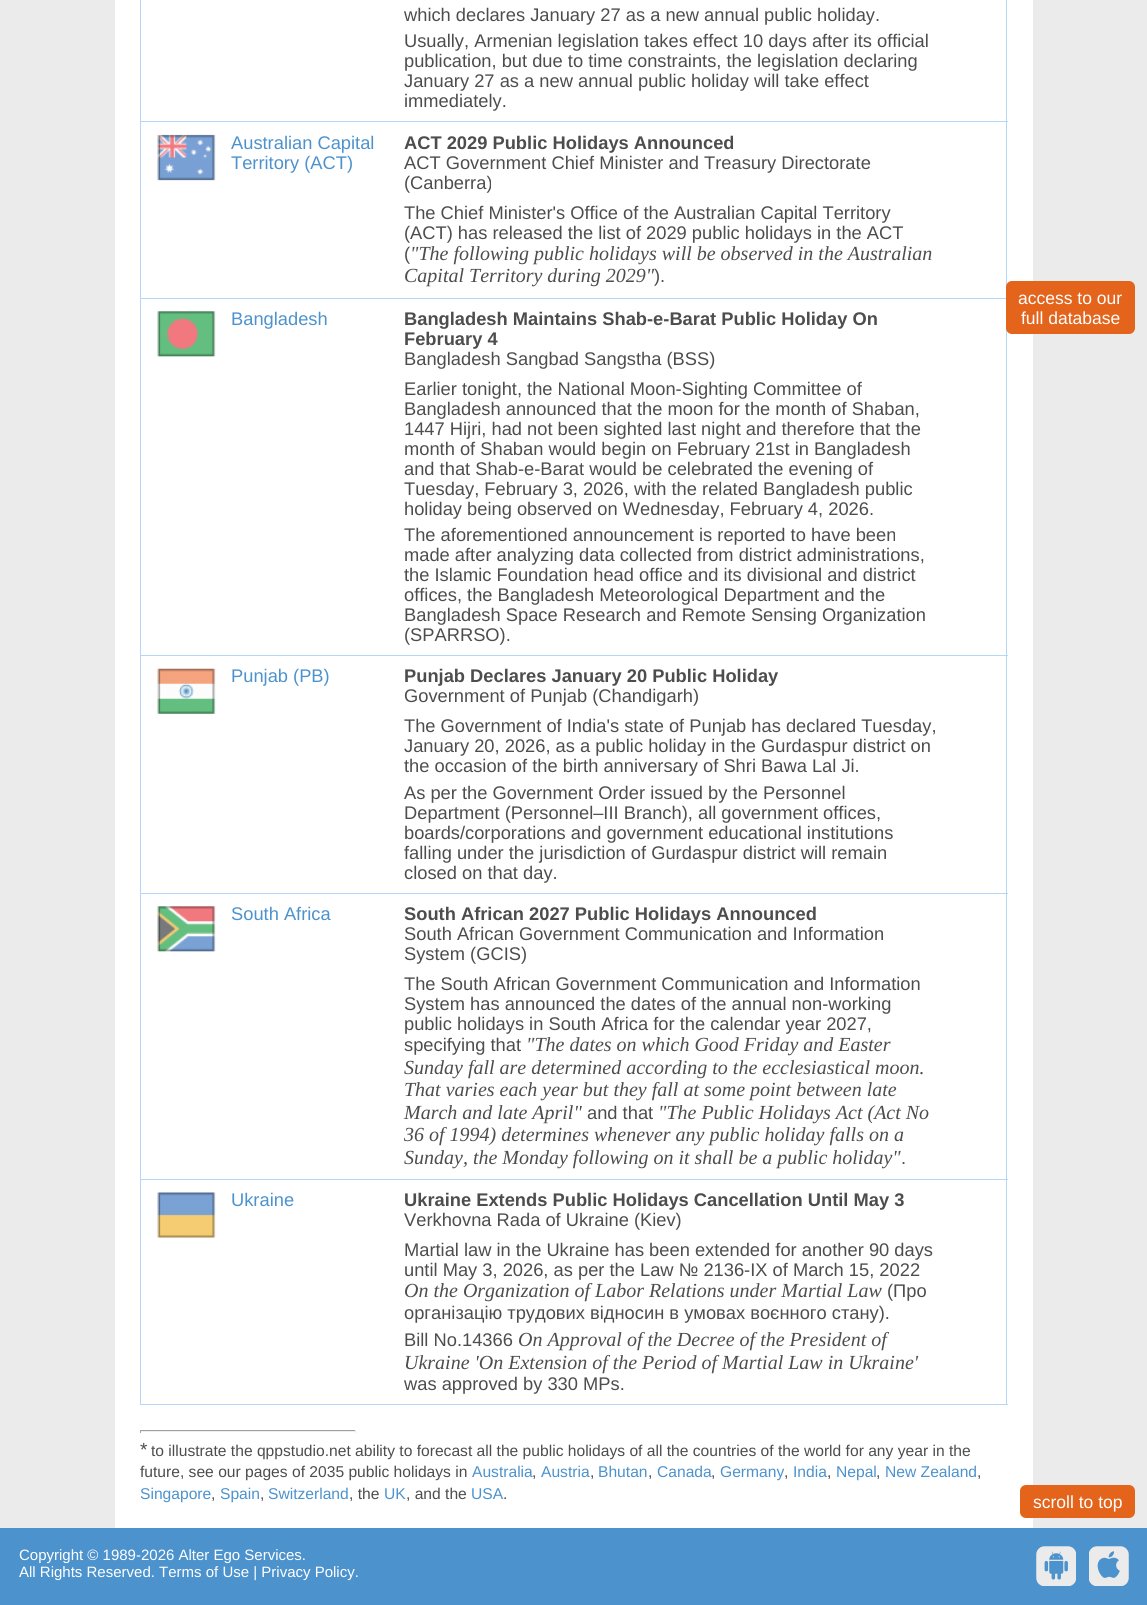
import math
import cairo



def rounded_rect(context, x, y, w, h, r):
    context.new_sub_path()
    for i, (u, v) in enumerate([(x + w - r, y + h - r), (x + r, y + h - r), (x + r, y + r), (x + w - r, y + r)]):
        context.arc(u, v, r, i * math.pi / 2, (i + 1) * math.pi / 2)
    context.close_path()


def draw_image(context, path, x, y, w, h):
    context.save()
    context.set_source_surface(cairo.ImageSurface.create_from_png(path), x, y)
    context.rectangle(x, y, w, h)
    context.fill()
    context.restore()


def draw(context):
    context.set_source_rgb(235 / 255, 235 / 255, 235 / 255)
    context.paint()
    context.set_source_rgb(1, 1, 1)
    context.rectangle(115, 0, 918, 1528)
    context.fill()
    context.set_source_rgb(181 / 255, 214 / 255, 247 / 255)
    context.rectangle(1006, 0, 1, 287)
    context.fill()
    context.rectangle(140, 121, 868, 1)
    context.fill()
    context.rectangle(140, 0, 1, 123)
    context.fill()
    context.rectangle(140, 298, 868, 1)
    context.fill()
    context.rectangle(140, 123, 1, 176)
    context.fill()
    draw_image(context, "images/1.png", 157, 134, 59, 47)
    context.rectangle(1006, 328, 1, 1077)
    context.fill()
    context.rectangle(140, 655, 868, 1)
    context.fill()
    context.rectangle(140, 299, 1, 357)
    context.fill()
    draw_image(context, "images/2.png", 157, 311, 59, 46)
    context.rectangle(140, 893, 868, 1)
    context.fill()
    context.rectangle(140, 656, 1, 238)
    context.fill()
    draw_image(context, "images/3.png", 157, 668, 59, 46)
    context.rectangle(140, 1179, 868, 1)
    context.fill()
    context.rectangle(140, 894, 1, 286)
    context.fill()
    draw_image(context, "images/4.png", 157, 906, 59, 46)
    context.rectangle(140, 1404, 868, 1)
    context.fill()
    context.rectangle(140, 1180, 1, 225)
    context.fill()
    draw_image(context, "images/5.png", 157, 1192, 59, 46)
    context.set_source_rgb(228 / 255, 100 / 255, 28 / 255)
    rounded_rect(context, 1006, 281, 129, 53, 6)
    context.fill()
    context.set_source_rgb(159 / 255, 159 / 255, 159 / 255)
    context.rectangle(140, 1430, 216, 1)
    context.fill()
    context.set_source_rgb(238 / 255, 238 / 255, 238 / 255)
    context.rectangle(355, 1430, 1, 3)
    context.fill()
    context.rectangle(140, 1431, 216, 1)
    context.fill()
    context.set_source_rgb(159 / 255, 159 / 255, 159 / 255)
    context.rectangle(140, 1430, 1, 3)
    context.fill()
    context.set_source_rgb(228 / 255, 100 / 255, 28 / 255)
    rounded_rect(context, 1020, 1485, 115, 33, 6)
    context.fill()
    context.set_source_rgb(76 / 255, 146 / 255, 205 / 255)
    context.rectangle(0, 1528, 1147, 77)
    context.fill()
    draw_image(context, "images/6.png", 1036, 1546, 40, 40)
    draw_image(context, "images/7.png", 1089, 1546, 40, 40)
    context.select_font_face("Liberation Sans")
    context.set_font_size(18.3)
    context.set_source_rgb(77 / 255, 77 / 255, 77 / 255)
    context.move_to(404, 21)
    context.show_text("which declares January 27 as a new annual public holiday.")
    context.move_to(404, 47)
    context.show_text("Usually, Armenian legislation takes effect 10 days after its official")
    context.move_to(404, 67)
    context.show_text("publication, but due to time constraints, the legislation declaring")
    context.move_to(404, 87)
    context.show_text("January 27 as a new annual public holiday will take effect")
    context.move_to(404, 107)
    context.show_text("immediately.")
    context.set_source_rgb(76 / 255, 146 / 255, 205 / 255)
    context.move_to(231, 149)
    context.show_text("Australian Capital")
    context.move_to(231, 169)
    context.show_text("Territory (ACT)")
    context.select_font_face("Liberation Sans", cairo.FontSlant.NORMAL, cairo.FontWeight.BOLD)
    context.set_source_rgb(77 / 255, 77 / 255, 77 / 255)
    context.move_to(404, 149)
    context.show_text("ACT 2029 Public Holidays Announced")
    context.select_font_face("Liberation Sans")
    context.move_to(404, 169)
    context.show_text("ACT Government Chief Minister and Treasury Directorate")
    context.move_to(404, 189)
    context.show_text("(Canberra)")
    context.move_to(404, 219)
    context.show_text("The Chief Minister's Office of the Australian Capital Territory")
    context.move_to(404, 239)
    context.show_text("(ACT) has released the list of 2029 public holidays in the ACT")
    context.move_to(404, 260)
    context.show_text("(")
    context.select_font_face("Liberation Serif", cairo.FontSlant.ITALIC)
    context.set_font_size(20)
    context.move_to(410, 260)
    context.show_text("\"The following public holidays will be observed in the Australian")
    context.move_to(404, 282)
    context.show_text("Capital Territory during 2029\"")
    context.select_font_face("Liberation Sans")
    context.set_font_size(18.3)
    context.move_to(654, 282)
    context.show_text(").")
    context.set_source_rgb(76 / 255, 146 / 255, 205 / 255)
    context.move_to(231, 325)
    context.show_text("Bangladesh")
    context.select_font_face("Liberation Sans", cairo.FontSlant.NORMAL, cairo.FontWeight.BOLD)
    context.set_source_rgb(77 / 255, 77 / 255, 77 / 255)
    context.move_to(404, 325)
    context.show_text("Bangladesh Maintains Shab-e-Barat Public Holiday On")
    context.move_to(404, 345)
    context.show_text("February 4")
    context.select_font_face("Liberation Sans")
    context.move_to(404, 365)
    context.show_text("Bangladesh Sangbad Sangstha (BSS)")
    context.move_to(404, 395)
    context.show_text("Earlier tonight, the National Moon-Sighting Committee of")
    context.move_to(404, 415)
    context.show_text("Bangladesh announced that the moon for the month of Shaban,")
    context.move_to(404, 435)
    context.show_text("1447 Hijri, had not been sighted last night and therefore that the")
    context.move_to(404, 455)
    context.show_text("month of Shaban would begin on February 21st in Bangladesh")
    context.move_to(404, 475)
    context.show_text("and that Shab-e-Barat would be celebrated the evening of")
    context.move_to(404, 495)
    context.show_text("Tuesday, February 3, 2026, with the related Bangladesh public")
    context.move_to(404, 515)
    context.show_text("holiday being observed on Wednesday, February 4, 2026.")
    context.move_to(404, 541)
    context.show_text("The aforementioned announcement is reported to have been")
    context.move_to(404, 561)
    context.show_text("made after analyzing data collected from district administrations,")
    context.move_to(404, 581)
    context.show_text("the Islamic Foundation head office and its divisional and district")
    context.move_to(404, 601)
    context.show_text("offices, the Bangladesh Meteorological Department and the")
    context.move_to(404, 621)
    context.show_text("Bangladesh Space Research and Remote Sensing Organization")
    context.move_to(404, 641)
    context.show_text("(SPARRSO).")
    context.set_source_rgb(76 / 255, 146 / 255, 205 / 255)
    context.move_to(231, 682)
    context.show_text("Punjab (PB)")
    context.select_font_face("Liberation Sans", cairo.FontSlant.NORMAL, cairo.FontWeight.BOLD)
    context.set_source_rgb(77 / 255, 77 / 255, 77 / 255)
    context.move_to(404, 682)
    context.show_text("Punjab Declares January 20 Public Holiday")
    context.select_font_face("Liberation Sans")
    context.move_to(404, 702)
    context.show_text("Government of Punjab (Chandigarh)")
    context.move_to(404, 732)
    context.show_text("The Government of India's state of Punjab has declared Tuesday,")
    context.move_to(404, 752)
    context.show_text("January 20, 2026, as a public holiday in the Gurdaspur district on")
    context.move_to(404, 772)
    context.show_text("the occasion of the birth anniversary of Shri Bawa Lal Ji.")
    context.move_to(404, 799)
    context.show_text("As per the Government Order issued by the Personnel")
    context.move_to(404, 819)
    context.show_text("Department (Personnel–III Branch), all government offices,")
    context.move_to(404, 839)
    context.show_text("boards/corporations and government educational institutions")
    context.move_to(404, 859)
    context.show_text("falling under the jurisdiction of Gurdaspur district will remain")
    context.move_to(404, 879)
    context.show_text("closed on that day.")
    context.set_source_rgb(76 / 255, 146 / 255, 205 / 255)
    context.move_to(231, 920)
    context.show_text("South Africa")
    context.select_font_face("Liberation Sans", cairo.FontSlant.NORMAL, cairo.FontWeight.BOLD)
    context.set_source_rgb(77 / 255, 77 / 255, 77 / 255)
    context.move_to(404, 920)
    context.show_text("South African 2027 Public Holidays Announced")
    context.select_font_face("Liberation Sans")
    context.move_to(404, 940)
    context.show_text("South African Government Communication and Information")
    context.move_to(404, 960)
    context.show_text("System (GCIS)")
    context.move_to(404, 990)
    context.show_text("The South African Government Communication and Information")
    context.move_to(404, 1010)
    context.show_text("System has announced the dates of the annual non-working")
    context.move_to(404, 1030)
    context.show_text("public holidays in South Africa for the calendar year 2027,")
    context.move_to(404, 1051)
    context.show_text("specifying that")
    context.select_font_face("Liberation Serif", cairo.FontSlant.ITALIC)
    context.set_font_size(20)
    context.move_to(526, 1051)
    context.show_text("\"The dates on which Good Friday and Easter")
    context.move_to(404, 1074)
    context.show_text("Sunday fall are determined according to the ecclesiastical moon.")
    context.move_to(404, 1096)
    context.show_text("That varies each year but they fall at some point between late")
    context.move_to(404, 1119)
    context.show_text("March and late April\"")
    context.select_font_face("Liberation Sans")
    context.set_font_size(18.3)
    context.move_to(587, 1119)
    context.show_text("and that")
    context.select_font_face("Liberation Serif", cairo.FontSlant.ITALIC)
    context.set_font_size(20)
    context.move_to(658, 1119)
    context.show_text("\"The Public Holidays Act (Act No")
    context.move_to(404, 1141)
    context.show_text("36 of 1994) determines whenever any public holiday falls on a")
    context.move_to(404, 1164)
    context.show_text("Sunday, the Monday following on it shall be a public holiday\"")
    context.select_font_face("Liberation Sans")
    context.set_font_size(18.3)
    context.move_to(901, 1164)
    context.show_text(".")
    context.set_source_rgb(76 / 255, 146 / 255, 205 / 255)
    context.move_to(231, 1206)
    context.show_text("Ukraine")
    context.select_font_face("Liberation Sans", cairo.FontSlant.NORMAL, cairo.FontWeight.BOLD)
    context.set_source_rgb(77 / 255, 77 / 255, 77 / 255)
    context.move_to(404, 1206)
    context.show_text("Ukraine Extends Public Holidays Cancellation Until May 3")
    context.select_font_face("Liberation Sans")
    context.move_to(404, 1226)
    context.show_text("Verkhovna Rada of Ukraine (Kiev)")
    context.move_to(404, 1256)
    context.show_text("Martial law in the Ukraine has been extended for another 90 days")
    context.move_to(404, 1276)
    context.show_text("until May 3, 2026, as per the Law № 2136-IX of March 15, 2022")
    context.select_font_face("Liberation Serif", cairo.FontSlant.ITALIC)
    context.set_font_size(20)
    context.move_to(404, 1297)
    context.show_text("On the Organization of Labor Relations under Martial Law")
    context.select_font_face("Liberation Sans")
    context.set_font_size(18.3)
    context.move_to(887, 1297)
    context.show_text("(Про")
    context.move_to(404, 1319)
    context.show_text("організацію трудових відносин в умовах воєнного стану).")
    context.move_to(404, 1346)
    context.show_text("Bill No.14366")
    context.select_font_face("Liberation Serif", cairo.FontSlant.ITALIC)
    context.set_font_size(20)
    context.move_to(518, 1346)
    context.show_text("On Approval of the Decree of the President of")
    context.move_to(404, 1369)
    context.show_text("Ukraine 'On Extension of the Period of Martial Law in Ukraine'")
    context.select_font_face("Liberation Sans")
    context.set_font_size(18.3)
    context.move_to(404, 1390)
    context.show_text("was approved by 330 MPs.")
    context.set_font_size(17.5)
    context.set_source_rgb(1, 1, 1)
    context.move_to(1018, 304)
    context.show_text("access to our")
    context.move_to(1021, 324)
    context.show_text("full database")
    context.set_font_size(19)
    context.set_source_rgb(77 / 255, 77 / 255, 77 / 255)
    context.move_to(140, 1456)
    context.show_text("*")
    context.set_font_size(15.62)
    context.move_to(151, 1456)
    context.show_text("to illustrate the qppstudio.net ability to forecast all the public holidays of all the countries of the world for any year in the")
    context.move_to(140, 1477)
    context.show_text("future, see our pages of 2035 public holidays in")
    context.set_source_rgb(76 / 255, 146 / 255, 205 / 255)
    context.move_to(472, 1477)
    context.show_text("Australia")
    context.set_source_rgb(77 / 255, 77 / 255, 77 / 255)
    context.move_to(532, 1477)
    context.show_text(",")
    context.set_source_rgb(76 / 255, 146 / 255, 205 / 255)
    context.move_to(541, 1477)
    context.show_text("Austria")
    context.set_source_rgb(77 / 255, 77 / 255, 77 / 255)
    context.move_to(590, 1477)
    context.show_text(",")
    context.set_source_rgb(76 / 255, 146 / 255, 205 / 255)
    context.move_to(598, 1477)
    context.show_text("Bhutan")
    context.set_source_rgb(77 / 255, 77 / 255, 77 / 255)
    context.move_to(648, 1477)
    context.show_text(",")
    context.set_source_rgb(76 / 255, 146 / 255, 205 / 255)
    context.move_to(657, 1477)
    context.show_text("Canada")
    context.set_source_rgb(77 / 255, 77 / 255, 77 / 255)
    context.move_to(711, 1477)
    context.show_text(",")
    context.set_source_rgb(76 / 255, 146 / 255, 205 / 255)
    context.move_to(720, 1477)
    context.show_text("Germany")
    context.set_source_rgb(77 / 255, 77 / 255, 77 / 255)
    context.move_to(784, 1477)
    context.show_text(",")
    context.set_source_rgb(76 / 255, 146 / 255, 205 / 255)
    context.move_to(793, 1477)
    context.show_text("India")
    context.set_source_rgb(77 / 255, 77 / 255, 77 / 255)
    context.move_to(827, 1477)
    context.show_text(",")
    context.set_source_rgb(76 / 255, 146 / 255, 205 / 255)
    context.move_to(836, 1477)
    context.show_text("Nepal")
    context.set_source_rgb(77 / 255, 77 / 255, 77 / 255)
    context.move_to(876, 1477)
    context.show_text(",")
    context.set_source_rgb(76 / 255, 146 / 255, 205 / 255)
    context.move_to(885, 1477)
    context.show_text("New Zealand")
    context.set_source_rgb(77 / 255, 77 / 255, 77 / 255)
    context.move_to(977, 1477)
    context.show_text(",")
    context.set_source_rgb(76 / 255, 146 / 255, 205 / 255)
    context.move_to(140, 1499)
    context.show_text("Singapore")
    context.set_source_rgb(77 / 255, 77 / 255, 77 / 255)
    context.move_to(211, 1499)
    context.show_text(",")
    context.set_source_rgb(76 / 255, 146 / 255, 205 / 255)
    context.move_to(220, 1499)
    context.show_text("Spain")
    context.set_source_rgb(77 / 255, 77 / 255, 77 / 255)
    context.move_to(260, 1499)
    context.show_text(",")
    context.set_source_rgb(76 / 255, 146 / 255, 205 / 255)
    context.move_to(268, 1499)
    context.show_text("Switzerland")
    context.set_source_rgb(77 / 255, 77 / 255, 77 / 255)
    context.move_to(349, 1499)
    context.show_text(", the")
    context.set_source_rgb(76 / 255, 146 / 255, 205 / 255)
    context.move_to(384, 1499)
    context.show_text("UK")
    context.set_source_rgb(77 / 255, 77 / 255, 77 / 255)
    context.move_to(406, 1499)
    context.show_text(", and the")
    context.set_source_rgb(76 / 255, 146 / 255, 205 / 255)
    context.move_to(471, 1499)
    context.show_text("USA")
    context.set_source_rgb(77 / 255, 77 / 255, 77 / 255)
    context.move_to(503, 1499)
    context.show_text(".")
    context.set_font_size(17.5)
    context.set_source_rgb(1, 1, 1)
    context.move_to(1033, 1508)
    context.show_text("scroll to top")
    context.set_font_size(15)
    context.move_to(19, 1560)
    context.show_text("Copyright © 1989-2026 Alter Ego Services.")
    context.move_to(19, 1577)
    context.show_text("All Rights Reserved. Terms of Use | Privacy Policy.")


surface = cairo.ImageSurface(cairo.Format.RGB24, 1147, 1605)
context = cairo.Context(surface)
options = cairo.FontOptions()
options.set_hint_metrics(cairo.HintMetrics.OFF)
options.set_hint_style(cairo.HintStyle.NONE)
context.set_font_options(options)
context.set_miter_limit(4)
draw(context)
surface.write_to_png("out.png")
